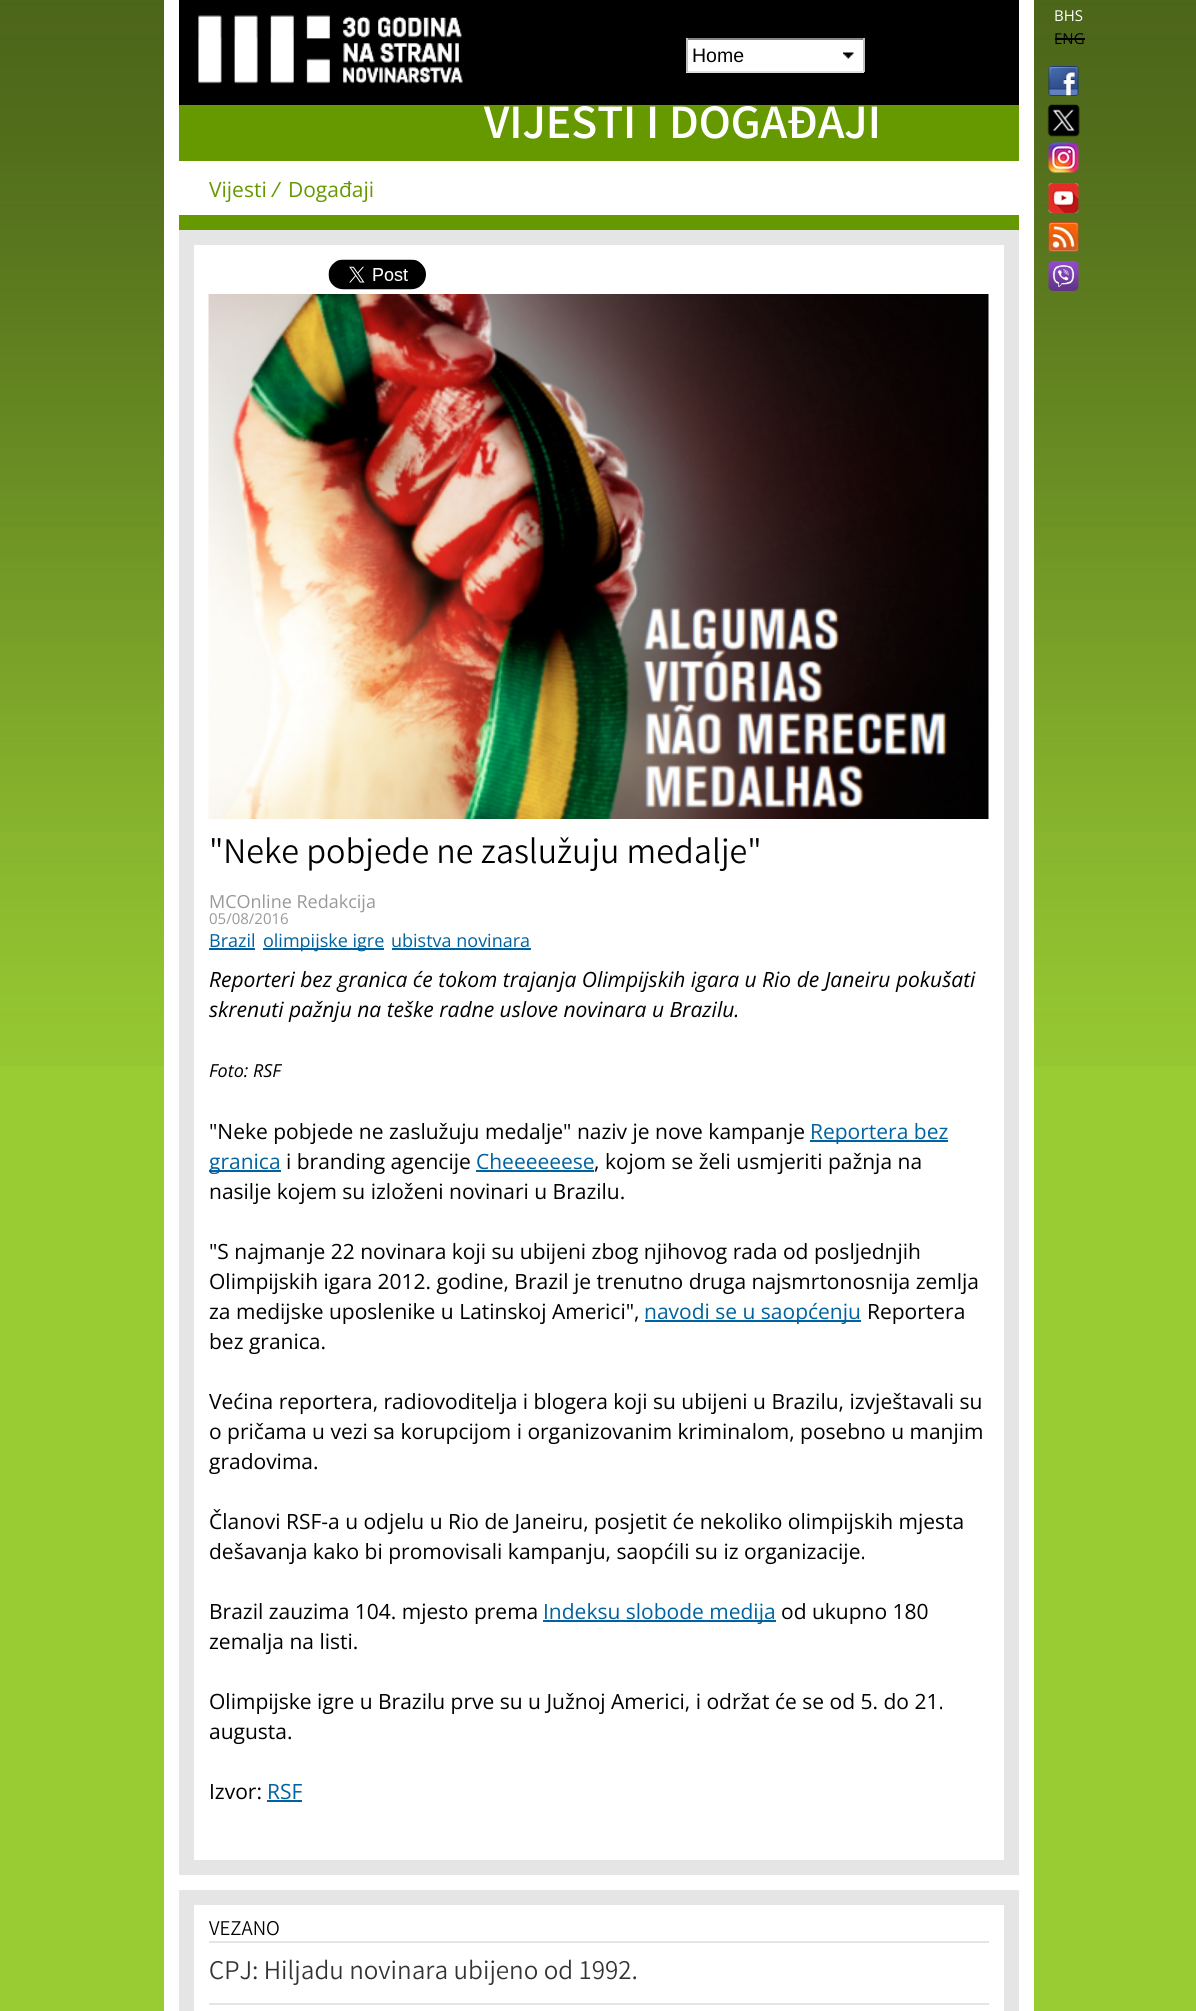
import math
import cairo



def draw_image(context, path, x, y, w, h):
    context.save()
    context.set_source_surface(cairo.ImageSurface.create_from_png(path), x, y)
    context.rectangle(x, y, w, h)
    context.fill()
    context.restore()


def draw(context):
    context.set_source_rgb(153 / 255, 204 / 255, 51 / 255)
    context.paint()
    draw_image(context, "images/1.png", 0, 0, 1196, 1066)
    context.set_source_rgb(1, 1, 1)
    context.rectangle(164, 0, 870, 2011)
    context.fill()
    context.set_source_rgb(0, 0, 0)
    context.rectangle(179, 0, 840, 105)
    context.fill()
    draw_image(context, "images/2.png", 198, 15, 265, 69)
    context.set_source_rgb(1, 1, 1)
    context.rectangle(688, 40, 175, 31)
    context.fill()
    draw_image(context, "images/3.png", 843, 52, 11, 7)
    context.set_source_rgb(132 / 255, 132 / 255, 132 / 255)
    context.rectangle(686, 38, 178, 2)
    context.fill()
    context.set_source_rgb(193 / 255, 193 / 255, 193 / 255)
    context.rectangle(863, 38, 2, 34)
    context.fill()
    context.set_source_rgb(225 / 255, 225 / 255, 225 / 255)
    context.rectangle(686, 71, 178, 2)
    context.fill()
    context.set_source_rgb(193 / 255, 193 / 255, 193 / 255)
    context.rectangle(686, 38, 2, 34)
    context.fill()
    context.set_source_rgb(0, 0, 0)
    context.rectangle(1055, 38, 30, 2)
    context.fill()
    draw_image(context, "images/4.png", 1048, 66, 31, 30)
    draw_image(context, "images/5.png", 1047, 104, 33, 33)
    draw_image(context, "images/6.png", 1048, 142, 31, 31)
    draw_image(context, "images/7.png", 1048, 183, 31, 30)
    draw_image(context, "images/8.png", 1048, 222, 31, 30)
    draw_image(context, "images/9.png", 1048, 261, 31, 30)
    context.set_source_rgb(102 / 255, 153 / 255, 0)
    context.rectangle(179, 105, 840, 56)
    context.fill()
    context.rectangle(179, 215, 840, 15)
    context.fill()
    context.rectangle(186.5, 237.5, 825, 1630)
    context.set_source_rgb(229 / 255, 229 / 255, 229 / 255)
    context.set_line_width(15)
    context.stroke()
    draw_image(context, "images/10.png", 328, 259, 98, 31)
    draw_image(context, "images/11.png", 208, 294, 781, 525)
    context.set_source_rgb(0, 98 / 255, 160 / 255)
    context.rectangle(209, 948, 46, 2)
    context.fill()
    context.rectangle(263, 948, 121, 2)
    context.fill()
    context.rectangle(392, 948, 139, 2)
    context.fill()
    context.rectangle(810, 1140, 138, 2)
    context.fill()
    context.rectangle(209, 1170, 72, 2)
    context.fill()
    context.rectangle(476, 1170, 118, 2)
    context.fill()
    context.rectangle(645, 1320, 216, 2)
    context.fill()
    context.rectangle(543, 1620, 233, 2)
    context.fill()
    context.rectangle(267, 1800, 35, 2)
    context.fill()
    context.rectangle(186.5, 1897.5, 825, 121)
    context.set_source_rgb(229 / 255, 229 / 255, 229 / 255)
    context.stroke()
    context.rectangle(209, 1941, 780, 2)
    context.fill()
    context.rectangle(209, 2003, 780, 2)
    context.fill()
    context.select_font_face("Liberation Sans")
    context.set_font_size(19.5)
    context.set_source_rgb(0, 0, 0)
    context.move_to(692, 62)
    context.show_text("Home")
    context.select_font_face("Open Sans")
    context.set_font_size(15)
    context.set_source_rgb(1, 1, 1)
    context.move_to(1054, 21)
    context.show_text("BHS")
    context.set_source_rgb(0, 0, 0)
    context.move_to(1054, 44)
    context.show_text("ENG")
    context.select_font_face("Varta", cairo.FontSlant.NORMAL, cairo.FontWeight.BOLD)
    context.set_font_size(48)
    context.set_source_rgb(1, 1, 1)
    context.move_to(484, 138)
    context.show_text("VIJESTI I DOGAĐAJI")
    context.select_font_face("Open Sans")
    context.set_font_size(21)
    context.set_source_rgb(102 / 255, 153 / 255, 0)
    context.move_to(209, 197)
    context.show_text("Vijesti")
    context.select_font_face("Open Sans", cairo.FontSlant.ITALIC)
    context.move_to(272, 197)
    context.show_text("/")
    context.select_font_face("Open Sans")
    context.move_to(288, 197)
    context.show_text("Događaji")
    context.select_font_face("Varta Light")
    context.set_font_size(36)
    context.set_source_rgb(0, 0, 0)
    context.move_to(209, 863)
    context.show_text("\"Neke pobjede ne zaslužuju medalje\"")
    context.select_font_face("Open Sans")
    context.set_font_size(18)
    context.set_source_rgb(153 / 255, 153 / 255, 153 / 255)
    context.move_to(209, 908)
    context.show_text("MCOnline Redakcija")
    context.set_font_size(15)
    context.move_to(209, 924)
    context.show_text("05/08/2016")
    context.set_font_size(18)
    context.set_source_rgb(0, 98 / 255, 160 / 255)
    context.move_to(209, 947)
    context.show_text("Brazil")
    context.move_to(263, 947)
    context.show_text("olimpijske igre")
    context.move_to(391, 947)
    context.show_text("ubistva novinara")
    context.select_font_face("Open Sans", cairo.FontSlant.ITALIC)
    context.set_font_size(21)
    context.set_source_rgb(0, 0, 0)
    context.move_to(209, 987)
    context.show_text("Reporteri bez granica će tokom trajanja Olimpijskih igara u Rio de Janeiru pokušati")
    context.move_to(209, 1017)
    context.show_text("skrenuti pažnju na teške radne uslove novinara u Brazilu.")
    context.set_font_size(18)
    context.move_to(209, 1077)
    context.show_text("Foto: RSF")
    context.select_font_face("Open Sans")
    context.set_font_size(21)
    context.move_to(209, 1139)
    context.show_text("\"Neke pobjede ne zaslužuju medalje\" naziv je nove kampanje")
    context.set_source_rgb(0, 98 / 255, 160 / 255)
    context.move_to(810, 1139)
    context.show_text("Reportera bez")
    context.move_to(209, 1169)
    context.show_text("granica")
    context.set_source_rgb(0, 0, 0)
    context.move_to(286, 1169)
    context.show_text("i branding agencije")
    context.set_source_rgb(0, 98 / 255, 160 / 255)
    context.move_to(476, 1169)
    context.show_text("Cheeeeeese")
    context.set_source_rgb(0, 0, 0)
    context.move_to(594, 1169)
    context.show_text(", kojom se želi usmjeriti pažnja na")
    context.move_to(209, 1199)
    context.show_text("nasilje kojem su izloženi novinari u Brazilu.")
    context.move_to(209, 1259)
    context.show_text("\"S najmanje 22 novinara koji su ubijeni zbog njihovog rada od posljednjih")
    context.move_to(209, 1289)
    context.show_text("Olimpijskih igara 2012. godine, Brazil je trenutno druga najsmrtonosnija zemlja")
    context.move_to(209, 1319)
    context.show_text("za medijske uposlenike u Latinskoj Americi\",")
    context.set_source_rgb(0, 98 / 255, 160 / 255)
    context.move_to(644, 1319)
    context.show_text("navodi se u saopćenju")
    context.set_source_rgb(0, 0, 0)
    context.move_to(867, 1319)
    context.show_text("Reportera")
    context.move_to(209, 1349)
    context.show_text("bez granica.")
    context.move_to(209, 1409)
    context.show_text("Većina reportera, radiovoditelja i blogera koji su ubijeni u Brazilu, izvještavali su")
    context.move_to(209, 1439)
    context.show_text("o pričama u vezi sa korupcijom i organizovanim kriminalom, posebno u manjim")
    context.move_to(209, 1469)
    context.show_text("gradovima.")
    context.move_to(209, 1529)
    context.show_text("Članovi RSF-a u odjelu u Rio de Janeiru, posjetit će nekoliko olimpijskih mjesta")
    context.move_to(209, 1559)
    context.show_text("dešavanja kako bi promovisali kampanju, saopćili su iz organizacije.")
    context.move_to(209, 1619)
    context.show_text("Brazil zauzima 104. mjesto prema")
    context.set_source_rgb(0, 98 / 255, 160 / 255)
    context.move_to(543, 1619)
    context.show_text("Indeksu slobode medija")
    context.set_source_rgb(0, 0, 0)
    context.move_to(781, 1619)
    context.show_text("od ukupno 180")
    context.move_to(209, 1649)
    context.show_text("zemalja na listi.")
    context.move_to(209, 1709)
    context.show_text("Olimpijske igre u Brazilu prve su u Južnoj Americi, i održat će se od 5. do 21.")
    context.move_to(209, 1739)
    context.show_text("augusta.")
    context.move_to(209, 1799)
    context.show_text("Izvor:")
    context.set_source_rgb(0, 98 / 255, 160 / 255)
    context.move_to(267, 1799)
    context.show_text("RSF")
    context.select_font_face("Varta Light")
    context.set_source_rgb(0, 0, 0)
    context.move_to(209, 1935)
    context.show_text("VEZANO")
    context.set_font_size(27)
    context.set_source_rgb(51 / 255, 51 / 255, 51 / 255)
    context.move_to(209, 1979)
    context.show_text("CPJ: Hiljadu novinara ubijeno od 1992.")


surface = cairo.ImageSurface(cairo.Format.RGB24, 1196, 2011)
context = cairo.Context(surface)
options = cairo.FontOptions()
options.set_hint_metrics(cairo.HintMetrics.OFF)
options.set_hint_style(cairo.HintStyle.NONE)
context.set_font_options(options)
context.set_miter_limit(4)
draw(context)
surface.write_to_png("out.png")
